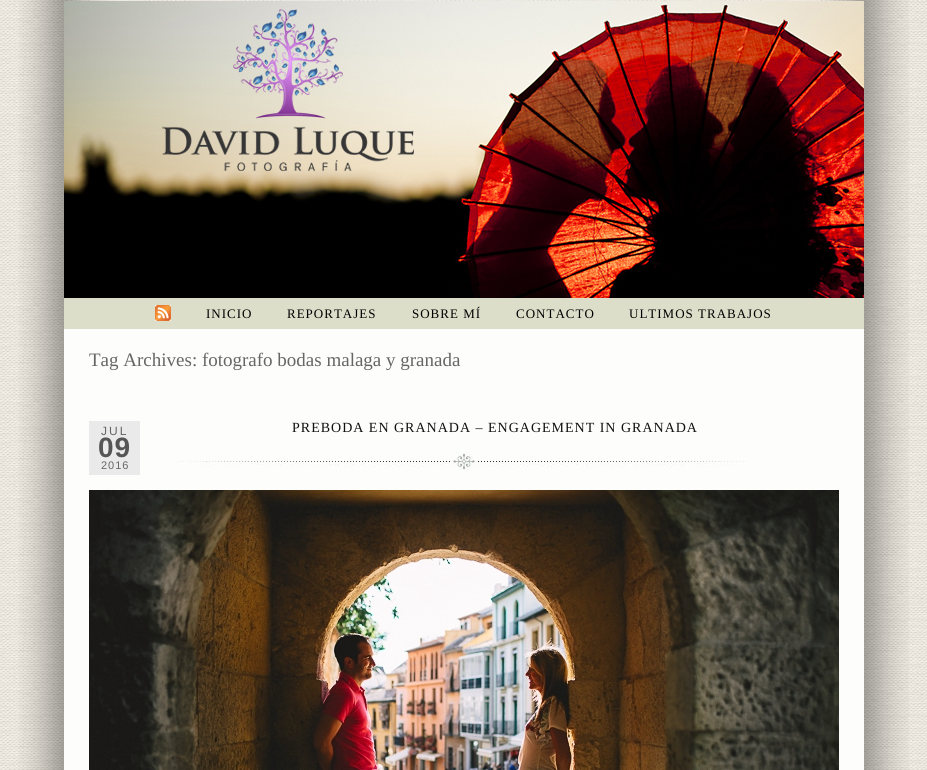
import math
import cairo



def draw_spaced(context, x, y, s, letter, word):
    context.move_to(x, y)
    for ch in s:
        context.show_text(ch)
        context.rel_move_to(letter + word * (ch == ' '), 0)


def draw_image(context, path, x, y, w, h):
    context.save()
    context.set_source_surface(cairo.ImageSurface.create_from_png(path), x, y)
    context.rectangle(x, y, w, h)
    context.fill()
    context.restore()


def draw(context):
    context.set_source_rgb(1, 1, 1)
    context.paint()
    draw_image(context, "images/1.png", 0, 0, 927, 770)
    draw_image(context, "images/2.png", 19, 0, 90, 770)
    draw_image(context, "images/3.png", 819, 0, 90, 770)
    draw_image(context, "images/4.png", 64, 1, 800, 297)
    context.set_source_rgb(221 / 255, 222 / 255, 201 / 255)
    context.rectangle(64, 298, 800, 31)
    context.fill()
    draw_image(context, "images/5.png", 155, 305, 16, 16)
    context.set_source_rgb(253 / 255, 253 / 255, 252 / 255)
    context.rectangle(64, 329, 800, 441)
    context.fill()
    draw_image(context, "images/6.png", 179, 452, 567, 18)
    context.set_source_rgb(234 / 255, 234 / 255, 234 / 255)
    context.rectangle(89, 421, 51, 54)
    context.fill()
    draw_image(context, "images/7.png", 89, 490, 750, 280)
    context.select_font_face("Liberation Serif")
    context.set_font_size(13)
    context.set_source_rgb(0, 0, 0)
    draw_spaced(context, 206, 318, "INICIO", 1, 0)
    draw_spaced(context, 287, 318, "REPORTAJES", 1, 0)
    draw_spaced(context, 412, 318, "SOBRE MÍ", 1, 0)
    draw_spaced(context, 516, 318, "CONTACTO", 1, 0)
    draw_spaced(context, 629, 318, "ULTIMOS TRABAJOS", 1, 0)
    context.set_font_size(19)
    context.set_source_rgb(102 / 255, 102 / 255, 102 / 255)
    context.move_to(89, 366)
    context.show_text("Tag Archives: fotografo bodas malaga y granada")
    context.select_font_face("Liberation Sans")
    context.set_font_size(12)
    draw_spaced(context, 101, 435, "JUL", 2, 0)
    context.select_font_face("Liberation Sans", cairo.FontSlant.NORMAL, cairo.FontWeight.BOLD)
    context.set_font_size(28)
    context.set_source_rgb(85 / 255, 85 / 255, 85 / 255)
    draw_spaced(context, 98, 457, "09", 1, 0)
    context.select_font_face("Liberation Sans")
    context.set_font_size(11)
    context.set_source_rgb(102 / 255, 102 / 255, 102 / 255)
    draw_spaced(context, 101, 469, "2016", 1, 0)
    context.select_font_face("Liberation Serif")
    context.set_font_size(14)
    context.set_source_rgb(17 / 255, 17 / 255, 17 / 255)
    draw_spaced(context, 292, 432, "PREBODA EN GRANADA – ENGAGEMENT IN GRANADA", 1, 0)


surface = cairo.ImageSurface(cairo.Format.RGB24, 927, 770)
context = cairo.Context(surface)
options = cairo.FontOptions()
options.set_hint_metrics(cairo.HintMetrics.OFF)
options.set_hint_style(cairo.HintStyle.NONE)
context.set_font_options(options)
context.set_miter_limit(4)
draw(context)
surface.write_to_png("out.png")
